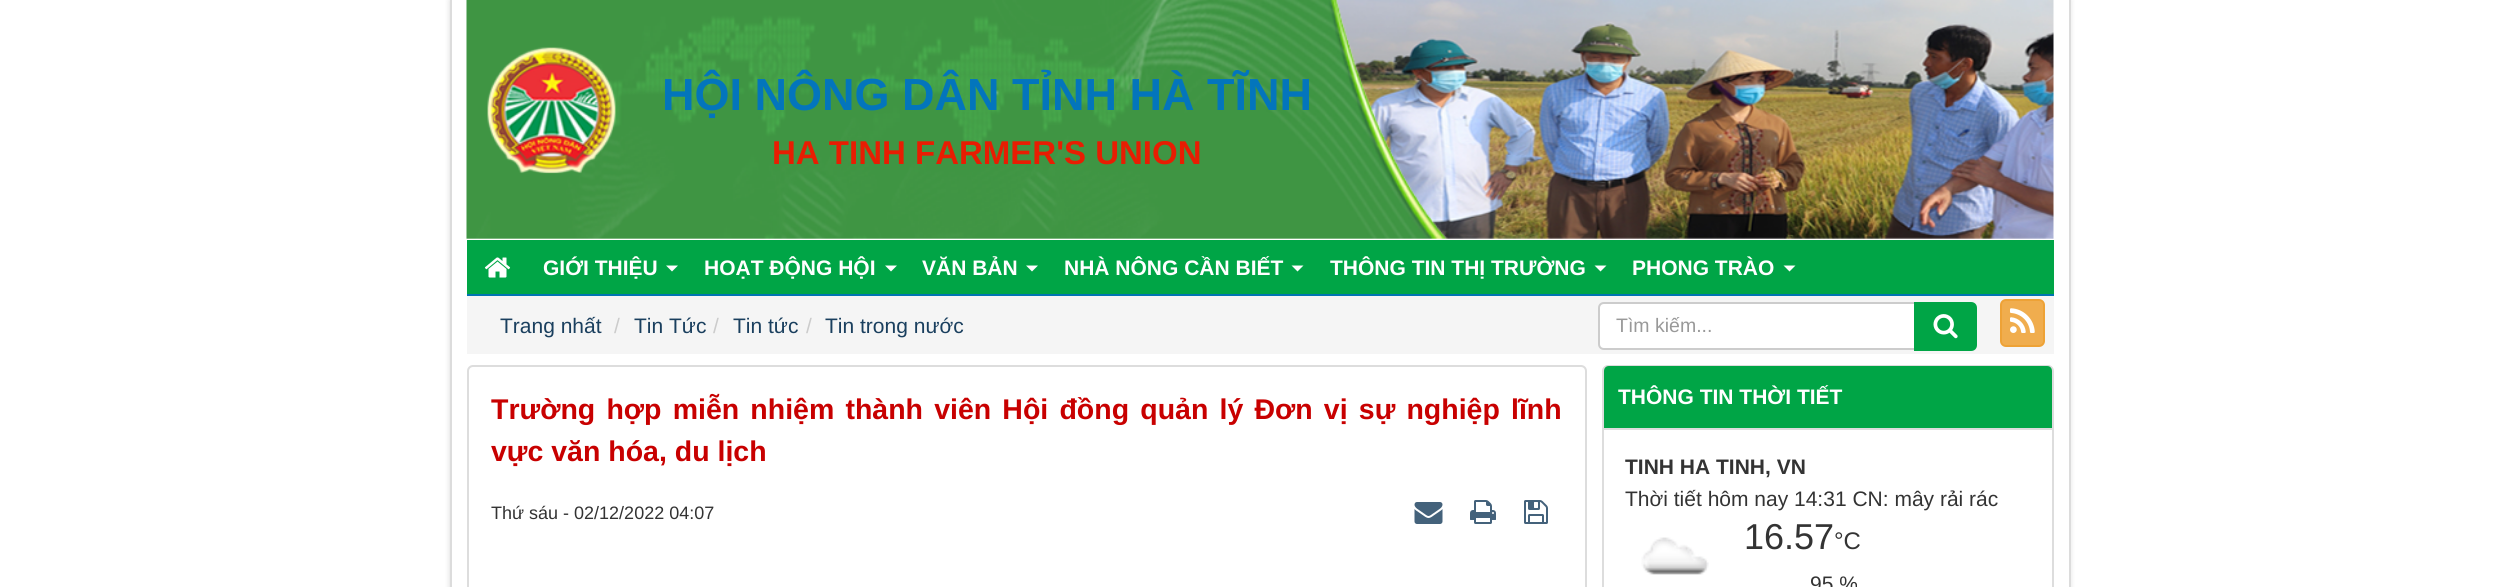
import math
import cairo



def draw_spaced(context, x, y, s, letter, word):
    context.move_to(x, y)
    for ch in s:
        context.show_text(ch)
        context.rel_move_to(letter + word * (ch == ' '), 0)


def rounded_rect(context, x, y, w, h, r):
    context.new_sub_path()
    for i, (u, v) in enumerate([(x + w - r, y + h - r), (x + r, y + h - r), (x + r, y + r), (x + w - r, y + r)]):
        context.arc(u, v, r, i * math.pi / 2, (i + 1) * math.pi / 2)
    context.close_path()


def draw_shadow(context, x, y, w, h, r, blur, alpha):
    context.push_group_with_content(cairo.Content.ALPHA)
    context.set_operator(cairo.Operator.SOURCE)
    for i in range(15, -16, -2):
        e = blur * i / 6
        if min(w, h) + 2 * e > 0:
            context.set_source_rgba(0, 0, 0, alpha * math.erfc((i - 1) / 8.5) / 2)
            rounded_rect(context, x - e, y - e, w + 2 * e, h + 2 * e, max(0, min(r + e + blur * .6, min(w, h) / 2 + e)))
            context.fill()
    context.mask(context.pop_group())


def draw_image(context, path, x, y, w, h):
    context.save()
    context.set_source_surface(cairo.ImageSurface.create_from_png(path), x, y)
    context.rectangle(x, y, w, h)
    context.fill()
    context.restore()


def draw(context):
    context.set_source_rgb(1, 1, 1)
    context.paint()
    context.save()
    context.set_fill_rule(cairo.FillRule.EVEN_ODD)
    context.new_path()
    context.move_to(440, 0)
    context.line_to(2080, 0)
    context.line_to(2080, 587)
    context.line_to(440, 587)
    context.close_path()
    context.move_to(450, 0)
    context.line_to(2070, 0)
    context.line_to(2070, 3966)
    context.line_to(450, 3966)
    context.close_path()
    context.clip()
    context.set_source_rgb(0, 0, 0)
    draw_shadow(context, 450, 0, 1620, 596, 0, 3, 0.15)
    context.restore()
    context.set_source_rgb(220 / 255, 220 / 255, 220 / 255)
    context.rectangle(2069, 0, 2, 587)
    context.fill()
    context.rectangle(450, 0, 2, 587)
    context.fill()
    draw_image(context, "images/1.png", 466, 0, 1588, 239)
    context.set_source_rgb(0, 165 / 255, 70 / 255)
    context.rectangle(467, 240, 1587, 54)
    context.fill()
    context.set_source_rgb(0, 116 / 255, 178 / 255)
    context.rectangle(467, 294, 1587, 2)
    context.fill()
    draw_image(context, "images/2.png", 484, 257, 27, 21)
    context.set_source_rgb(1, 1, 1)
    context.new_path()
    context.move_to(666, 265.5)
    context.line_to(678, 265.5)
    context.line_to(672, 271.5)
    context.close_path()
    context.fill()
    context.new_path()
    context.move_to(885, 265.5)
    context.line_to(897, 265.5)
    context.line_to(891, 271.5)
    context.close_path()
    context.fill()
    context.new_path()
    context.move_to(1026, 265.5)
    context.line_to(1038, 265.5)
    context.line_to(1032, 271.5)
    context.close_path()
    context.fill()
    context.new_path()
    context.move_to(1291.5, 265.5)
    context.line_to(1303.5, 265.5)
    context.line_to(1297.5, 271.5)
    context.close_path()
    context.fill()
    context.new_path()
    context.move_to(1594.5, 265.5)
    context.line_to(1606.5, 265.5)
    context.line_to(1600.5, 271.5)
    context.close_path()
    context.fill()
    context.new_path()
    context.move_to(1783.5, 265.5)
    context.line_to(1795.5, 265.5)
    context.line_to(1789.5, 271.5)
    context.close_path()
    context.fill()
    context.set_source_rgb(245 / 255, 245 / 255, 245 / 255)
    context.rectangle(467, 296, 1587, 58)
    context.fill()
    context.set_source_rgb(1, 1, 1)
    context.new_path()
    context.move_to(1604, 303)
    context.line_to(1915, 303)
    context.line_to(1915, 349)
    context.line_to(1604, 349)
    context.curve_to(1601, 349, 1599, 347, 1599, 344)
    context.line_to(1599, 308)
    context.curve_to(1599, 305, 1601, 303, 1604, 303)
    context.close_path()
    context.fill_preserve()
    context.set_source_rgb(204 / 255, 204 / 255, 204 / 255)
    context.stroke()
    context.set_source_rgb(0, 165 / 255, 70 / 255)
    context.new_path()
    context.move_to(1915, 303)
    context.line_to(1971, 303)
    context.curve_to(1974, 303, 1976, 305, 1976, 308)
    context.line_to(1976, 345)
    context.curve_to(1976, 348, 1974, 350, 1971, 350)
    context.line_to(1915, 350)
    context.close_path()
    context.fill_preserve()
    context.stroke()
    draw_image(context, "images/3.png", 1933, 314, 25, 25)
    context.set_source_rgb(240 / 255, 173 / 255, 78 / 255)
    rounded_rect(context, 2001, 300, 43, 46, 5)
    context.fill_preserve()
    context.set_source_rgb(238 / 255, 162 / 255, 54 / 255)
    context.stroke()
    draw_image(context, "images/4.png", 2010, 308, 25, 25)
    rounded_rect(context, 468, 366, 1118, 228, 5)
    context.set_source_rgb(221 / 255, 221 / 255, 221 / 255)
    context.stroke()
    draw_image(context, "images/5.png", 1414, 502, 29, 22)
    draw_image(context, "images/6.png", 1470, 500, 26, 24)
    draw_image(context, "images/7.png", 1524, 500, 24, 24)
    rounded_rect(context, 1603, 366, 450, 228, 5)
    context.stroke()
    context.set_source_rgb(0, 165 / 255, 70 / 255)
    context.new_path()
    context.move_to(1609, 366)
    context.line_to(2047, 366)
    context.curve_to(2050, 366, 2052, 368, 2052, 371)
    context.line_to(2052, 429)
    context.line_to(1604, 429)
    context.line_to(1604, 371)
    context.curve_to(1604, 368, 1606, 366, 1609, 366)
    context.close_path()
    context.fill()
    context.set_source_rgb(221 / 255, 221 / 255, 221 / 255)
    context.rectangle(1604, 428, 448, 2)
    context.fill()
    draw_image(context, "images/8.png", 1641, 537, 68, 38)
    context.select_font_face("Liberation Sans", cairo.FontSlant.NORMAL, cairo.FontWeight.BOLD)
    context.set_font_size(45)
    context.set_source_rgb(3 / 255, 117 / 255, 188 / 255)
    context.move_to(662, 110)
    context.show_text("HỘI NÔNG DÂN TỈNH HÀ TĨNH")
    context.set_font_size(33)
    context.set_source_rgb(232 / 255, 29 / 255, 2 / 255)
    context.move_to(772, 164)
    context.show_text("HA TINH FARMER'S UNION")
    context.set_font_size(21)
    context.set_source_rgb(1, 1, 1)
    context.move_to(543, 275)
    context.show_text("GIỚI THIỆU")
    context.move_to(704, 275)
    context.show_text("HOẠT ĐỘNG HỘI")
    context.move_to(922, 275)
    context.show_text("VĂN BẢN")
    context.move_to(1064, 275)
    context.show_text("NHÀ NÔNG CẦN BIẾT")
    context.move_to(1330, 275)
    context.show_text("THÔNG TIN THỊ TRƯỜNG")
    context.move_to(1632, 275)
    context.show_text("PHONG TRÀO")
    context.select_font_face("Liberation Sans")
    context.set_source_rgb(26 / 255, 63 / 255, 94 / 255)
    context.move_to(500, 333)
    context.show_text("Trang nhất")
    context.set_source_rgb(204 / 255, 204 / 255, 204 / 255)
    context.move_to(614, 333)
    context.show_text("/")
    context.set_source_rgb(26 / 255, 63 / 255, 94 / 255)
    context.move_to(634, 333)
    context.show_text("Tin Tức")
    context.set_source_rgb(204 / 255, 204 / 255, 204 / 255)
    context.move_to(713, 333)
    context.show_text("/")
    context.set_source_rgb(26 / 255, 63 / 255, 94 / 255)
    context.move_to(733, 333)
    context.show_text("Tin tức")
    context.set_source_rgb(204 / 255, 204 / 255, 204 / 255)
    context.move_to(806, 333)
    context.show_text("/")
    context.set_source_rgb(26 / 255, 63 / 255, 94 / 255)
    context.move_to(825, 333)
    context.show_text("Tin trong nước")
    context.set_font_size(19.5)
    context.set_source_rgb(153 / 255, 153 / 255, 153 / 255)
    context.move_to(1616, 332)
    context.show_text("Tìm kiếm...")
    context.select_font_face("Liberation Sans", cairo.FontSlant.NORMAL, cairo.FontWeight.BOLD)
    context.set_font_size(28.5)
    context.set_source_rgb(200 / 255, 0, 0)
    draw_spaced(context, 491, 419, "Trường hợp miễn nhiệm thành viên Hội đồng quản lý Đơn vị sự nghiệp lĩnh", 0, 3.25)
    context.move_to(491, 461)
    context.show_text("vực văn hóa, du lịch")
    context.select_font_face("Liberation Sans")
    context.set_font_size(18)
    context.set_source_rgb(51 / 255, 51 / 255, 51 / 255)
    context.move_to(491, 519)
    context.show_text("Thứ sáu - 02/12/2022 04:07")
    context.select_font_face("Liberation Sans", cairo.FontSlant.NORMAL, cairo.FontWeight.BOLD)
    context.set_font_size(21)
    context.set_source_rgb(1, 1, 1)
    context.move_to(1618, 404)
    context.show_text("THÔNG TIN THỜI TIẾT")
    context.set_source_rgb(51 / 255, 51 / 255, 51 / 255)
    context.move_to(1625, 474)
    context.show_text("TINH HA TINH, VN")
    context.select_font_face("Liberation Sans")
    context.move_to(1625, 506)
    context.show_text("Thời tiết hôm nay 14:31 CN: mây rải rác")
    context.set_font_size(36)
    context.move_to(1744, 549)
    context.show_text("16.57")
    context.set_font_size(24)
    context.move_to(1834, 549)
    context.show_text("°C")
    context.set_font_size(21)
    context.move_to(1810, 591)
    context.show_text("95 %")


surface = cairo.ImageSurface(cairo.Format.RGB24, 2520, 587)
context = cairo.Context(surface)
options = cairo.FontOptions()
options.set_hint_metrics(cairo.HintMetrics.OFF)
options.set_hint_style(cairo.HintStyle.NONE)
context.set_font_options(options)
context.set_miter_limit(4)
draw(context)
surface.write_to_png("out.png")
